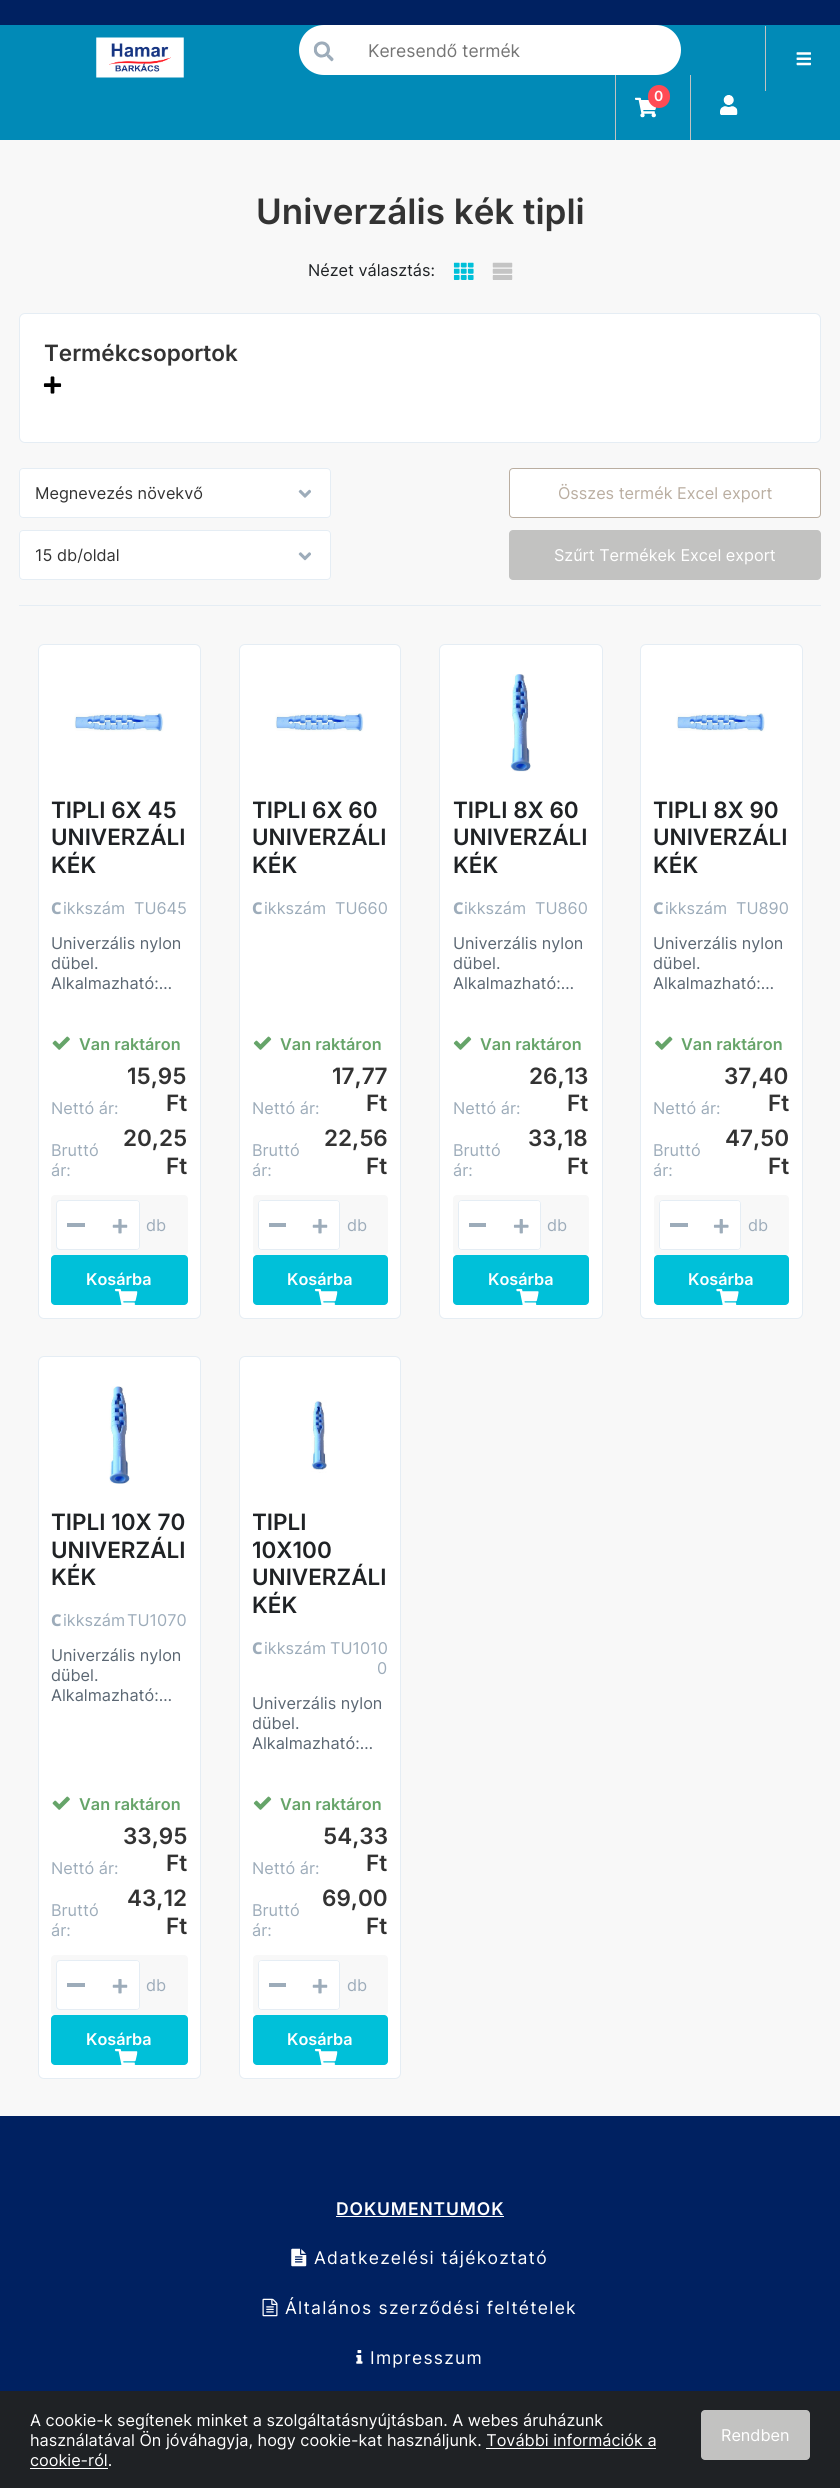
import math
import cairo



def draw_spaced(context, x, y, s, letter, word):
    context.move_to(x, y)
    for ch in s:
        context.show_text(ch)
        context.rel_move_to(letter + word * (ch == ' '), 0)


def rounded_rect(context, x, y, w, h, r):
    context.new_sub_path()
    for i, (u, v) in enumerate([(x + w - r, y + h - r), (x + r, y + h - r), (x + r, y + r), (x + w - r, y + r)]):
        context.arc(u, v, r, i * math.pi / 2, (i + 1) * math.pi / 2)
    context.close_path()


def draw_image(context, path, x, y, w, h):
    context.save()
    context.set_source_surface(cairo.ImageSurface.create_from_png(path), x, y)
    context.rectangle(x, y, w, h)
    context.fill()
    context.restore()


def draw(context):
    context.set_source_rgb(248 / 255, 248 / 255, 248 / 255)
    context.paint()
    context.set_source_rgb(0, 33 / 255, 97 / 255)
    context.rectangle(0, 0, 840, 25)
    context.fill()
    context.set_source_rgb(1 / 255, 138 / 255, 183 / 255)
    context.rectangle(0, 25, 840, 115)
    context.fill()
    draw_image(context, "images/1.png", 96, 37, 88, 41)
    context.set_source_rgb(1, 1, 1)
    context.new_path()
    context.move_to(324, 25)
    context.line_to(349, 25)
    context.line_to(349, 75)
    context.line_to(324, 75)
    context.curve_to(310, 75, 299, 64, 299, 50)
    context.curve_to(299, 36, 310, 25, 324, 25)
    context.close_path()
    context.fill()
    draw_image(context, "images/2.png", 313, 41, 21, 21)
    context.new_path()
    context.move_to(349, 25)
    context.line_to(656, 25)
    context.curve_to(670, 25, 681, 36, 681, 50)
    context.curve_to(681, 64, 670, 75, 656, 75)
    context.line_to(349, 75)
    context.close_path()
    context.fill()
    context.set_source_rgb(194 / 255, 194 / 255, 193 / 255)
    context.rectangle(765, 26, 1, 65)
    context.fill()
    draw_image(context, "images/3.png", 796, 52, 15, 14)
    context.rectangle(615, 75, 1, 65)
    context.fill()
    draw_image(context, "images/4.png", 635, 97, 22, 21)
    context.set_source_rgb(1, 75 / 255, 85 / 255)
    rounded_rect(context, 648, 85, 22, 23, 11)
    context.fill()
    context.set_source_rgb(194 / 255, 194 / 255, 193 / 255)
    context.rectangle(690, 75, 1, 65)
    context.fill()
    draw_image(context, "images/5.png", 720, 95, 18, 20)
    draw_image(context, "images/6.png", 453, 262, 21, 18)
    draw_image(context, "images/7.png", 492, 262, 21, 18)
    context.set_source_rgb(1, 1, 1)
    rounded_rect(context, 19.5, 313.5, 801, 129, 5.5)
    context.fill_preserve()
    context.set_source_rgb(229 / 255, 237 / 255, 244 / 255)
    context.set_line_width(1)
    context.stroke()
    draw_image(context, "images/8.png", 43, 376, 19, 18)
    context.rectangle(19, 605, 802, 1)
    context.fill()
    context.set_source_rgb(1, 1, 1)
    rounded_rect(context, 19, 468, 312, 50, 4)
    context.fill()
    draw_image(context, "images/9.png", 298, 489, 13, 9)
    rounded_rect(context, 19.5, 468.5, 311, 49, 3.5)
    context.set_source_rgb(229 / 255, 237 / 255, 244 / 255)
    context.stroke()
    context.set_source_rgb(1, 1, 1)
    rounded_rect(context, 19, 530, 312, 50, 4)
    context.fill()
    draw_image(context, "images/10.png", 298, 552, 13, 9)
    rounded_rect(context, 19.5, 530.5, 311, 49, 3.5)
    context.set_source_rgb(229 / 255, 237 / 255, 244 / 255)
    context.stroke()
    context.set_source_rgb(1, 1, 1)
    rounded_rect(context, 509.5, 468.5, 311, 49, 3.5)
    context.fill_preserve()
    context.set_source_rgb(186 / 255, 174 / 255, 161 / 255)
    context.stroke()
    context.set_source_rgb(194 / 255, 194 / 255, 193 / 255)
    rounded_rect(context, 509, 530, 312, 50, 4)
    context.fill()
    context.set_source_rgb(1, 1, 1)
    rounded_rect(context, 38.5, 644.5, 162, 674, 5.5)
    context.fill_preserve()
    context.set_source_rgb(229 / 255, 237 / 255, 244 / 255)
    context.stroke()
    draw_image(context, "images/11.png", 74, 713, 90, 19)
    draw_image(context, "images/12.png", 52, 1036, 18, 14)
    context.set_source_rgb(248 / 255, 248 / 255, 248 / 255)
    rounded_rect(context, 51, 1195, 137, 60, 4)
    context.fill()
    context.set_source_rgb(1, 1, 1)
    rounded_rect(context, 56.5, 1200.5, 83, 49, 3.5)
    context.fill_preserve()
    context.set_source_rgb(229 / 255, 237 / 255, 244 / 255)
    context.stroke()
    context.set_source_rgb(157 / 255, 172 / 255, 186 / 255)
    context.rectangle(67, 1223, 18, 4)
    context.fill()
    context.set_source_rgb(1, 1, 1)
    context.new_path()
    context.move_to(101, 1201)
    context.line_to(136.5, 1201)
    context.curve_to(138, 1201, 139, 1202, 139, 1203.5)
    context.line_to(139, 1246.5)
    context.curve_to(139, 1248, 138, 1249, 136.5, 1249)
    context.line_to(101, 1249)
    context.close_path()
    context.fill()
    draw_image(context, "images/13.png", 112, 1219, 16, 15)
    context.set_source_rgb(0, 192 / 255, 217 / 255)
    rounded_rect(context, 51, 1255, 137, 50, 4)
    context.fill()
    draw_image(context, "images/14.png", 115, 1288, 23, 17)
    context.set_source_rgb(1, 1, 1)
    rounded_rect(context, 239.5, 644.5, 161, 674, 5.5)
    context.fill_preserve()
    context.set_source_rgb(229 / 255, 237 / 255, 244 / 255)
    context.stroke()
    draw_image(context, "images/15.png", 275, 713, 89, 19)
    draw_image(context, "images/16.png", 253, 1036, 19, 14)
    context.set_source_rgb(248 / 255, 248 / 255, 248 / 255)
    rounded_rect(context, 253, 1195, 135, 60, 4)
    context.fill()
    context.set_source_rgb(1, 1, 1)
    rounded_rect(context, 258.5, 1200.5, 81, 49, 3.5)
    context.fill_preserve()
    context.set_source_rgb(229 / 255, 237 / 255, 244 / 255)
    context.stroke()
    context.set_source_rgb(1, 1, 1)
    context.new_path()
    context.move_to(261.5, 1201)
    context.line_to(296, 1201)
    context.line_to(296, 1249)
    context.line_to(261.5, 1249)
    context.curve_to(260, 1249, 259, 1248, 259, 1246.5)
    context.line_to(259, 1203.5)
    context.curve_to(259, 1202, 260, 1201, 261.5, 1201)
    context.close_path()
    context.fill()
    context.set_source_rgb(157 / 255, 172 / 255, 186 / 255)
    context.rectangle(269, 1223, 17, 4)
    context.fill()
    context.set_source_rgb(1, 1, 1)
    context.new_path()
    context.move_to(301, 1201)
    context.line_to(336.5, 1201)
    context.curve_to(338, 1201, 339, 1202, 339, 1203.5)
    context.line_to(339, 1246.5)
    context.curve_to(339, 1248, 338, 1249, 336.5, 1249)
    context.line_to(301, 1249)
    context.close_path()
    context.fill()
    draw_image(context, "images/13.png", 312, 1219, 16, 15)
    context.set_source_rgb(0, 192 / 255, 217 / 255)
    rounded_rect(context, 253, 1255, 135, 50, 4)
    context.fill()
    draw_image(context, "images/14.png", 315, 1288, 23, 17)
    context.set_source_rgb(1, 1, 1)
    rounded_rect(context, 439.5, 644.5, 163, 674, 5.5)
    context.fill_preserve()
    context.set_source_rgb(229 / 255, 237 / 255, 244 / 255)
    context.stroke()
    draw_image(context, "images/17.png", 510, 674, 21, 98)
    draw_image(context, "images/16.png", 453, 1036, 19, 14)
    context.set_source_rgb(248 / 255, 248 / 255, 248 / 255)
    rounded_rect(context, 453, 1195, 136, 60, 4)
    context.fill()
    context.set_source_rgb(1, 1, 1)
    rounded_rect(context, 458.5, 1200.5, 82, 49, 3.5)
    context.fill_preserve()
    context.set_source_rgb(229 / 255, 237 / 255, 244 / 255)
    context.stroke()
    context.set_source_rgb(1, 1, 1)
    context.new_path()
    context.move_to(461.5, 1201)
    context.line_to(496, 1201)
    context.line_to(496, 1249)
    context.line_to(461.5, 1249)
    context.curve_to(460, 1249, 459, 1248, 459, 1246.5)
    context.line_to(459, 1203.5)
    context.curve_to(459, 1202, 460, 1201, 461.5, 1201)
    context.close_path()
    context.fill()
    context.set_source_rgb(157 / 255, 172 / 255, 186 / 255)
    context.rectangle(469, 1223, 17, 4)
    context.fill()
    context.set_source_rgb(1, 1, 1)
    context.new_path()
    context.move_to(503, 1201)
    context.line_to(537.5, 1201)
    context.curve_to(539, 1201, 540, 1202, 540, 1203.5)
    context.line_to(540, 1246.5)
    context.curve_to(540, 1248, 539, 1249, 537.5, 1249)
    context.line_to(503, 1249)
    context.close_path()
    context.fill()
    draw_image(context, "images/18.png", 513, 1219, 16, 15)
    context.set_source_rgb(0, 192 / 255, 217 / 255)
    rounded_rect(context, 453, 1255, 136, 50, 4)
    context.fill()
    draw_image(context, "images/19.png", 516, 1288, 23, 17)
    context.set_source_rgb(1, 1, 1)
    rounded_rect(context, 640.5, 644.5, 162, 674, 5.5)
    context.fill_preserve()
    context.set_source_rgb(229 / 255, 237 / 255, 244 / 255)
    context.stroke()
    draw_image(context, "images/20.png", 676, 713, 89, 19)
    draw_image(context, "images/21.png", 655, 1036, 18, 14)
    context.set_source_rgb(248 / 255, 248 / 255, 248 / 255)
    rounded_rect(context, 654, 1195, 135, 60, 4)
    context.fill()
    context.set_source_rgb(1, 1, 1)
    rounded_rect(context, 659.5, 1200.5, 81, 49, 3.5)
    context.fill_preserve()
    context.set_source_rgb(229 / 255, 237 / 255, 244 / 255)
    context.stroke()
    context.set_source_rgb(1, 1, 1)
    context.new_path()
    context.move_to(662.5, 1201)
    context.line_to(698, 1201)
    context.line_to(698, 1249)
    context.line_to(662.5, 1249)
    context.curve_to(661, 1249, 660, 1248, 660, 1246.5)
    context.line_to(660, 1203.5)
    context.curve_to(660, 1202, 661, 1201, 662.5, 1201)
    context.close_path()
    context.fill()
    context.set_source_rgb(157 / 255, 172 / 255, 186 / 255)
    context.rectangle(670, 1223, 18, 4)
    context.fill()
    context.set_source_rgb(1, 1, 1)
    context.new_path()
    context.move_to(703, 1201)
    context.line_to(737.5, 1201)
    context.curve_to(739, 1201, 740, 1202, 740, 1203.5)
    context.line_to(740, 1246.5)
    context.curve_to(740, 1248, 739, 1249, 737.5, 1249)
    context.line_to(703, 1249)
    context.close_path()
    context.fill()
    draw_image(context, "images/18.png", 713, 1219, 16, 15)
    context.set_source_rgb(0, 192 / 255, 217 / 255)
    rounded_rect(context, 654, 1255, 135, 50, 4)
    context.fill()
    draw_image(context, "images/19.png", 716, 1288, 23, 17)
    context.set_source_rgb(1, 1, 1)
    rounded_rect(context, 38.5, 1356.5, 162, 722, 5.5)
    context.fill_preserve()
    context.set_source_rgb(229 / 255, 237 / 255, 244 / 255)
    context.stroke()
    draw_image(context, "images/22.png", 109, 1386, 21, 98)
    draw_image(context, "images/12.png", 52, 1796, 18, 14)
    context.set_source_rgb(248 / 255, 248 / 255, 248 / 255)
    rounded_rect(context, 51, 1955, 137, 60, 4)
    context.fill()
    context.set_source_rgb(1, 1, 1)
    rounded_rect(context, 56.5, 1960.5, 83, 49, 3.5)
    context.fill_preserve()
    context.set_source_rgb(229 / 255, 237 / 255, 244 / 255)
    context.stroke()
    context.set_source_rgb(157 / 255, 172 / 255, 186 / 255)
    context.rectangle(67, 1983, 18, 4)
    context.fill()
    context.set_source_rgb(1, 1, 1)
    context.new_path()
    context.move_to(101, 1961)
    context.line_to(136.5, 1961)
    context.curve_to(138, 1961, 139, 1962, 139, 1963.5)
    context.line_to(139, 2006.5)
    context.curve_to(139, 2008, 138, 2009, 136.5, 2009)
    context.line_to(101, 2009)
    context.close_path()
    context.fill()
    draw_image(context, "images/13.png", 112, 1979, 16, 15)
    context.set_source_rgb(0, 192 / 255, 217 / 255)
    rounded_rect(context, 51, 2015, 137, 50, 4)
    context.fill()
    draw_image(context, "images/14.png", 115, 2048, 23, 17)
    context.set_source_rgb(1, 1, 1)
    rounded_rect(context, 239.5, 1356.5, 161, 722, 5.5)
    context.fill_preserve()
    context.set_source_rgb(229 / 255, 237 / 255, 244 / 255)
    context.stroke()
    draw_image(context, "images/23.png", 311, 1400, 16, 73)
    draw_image(context, "images/16.png", 253, 1796, 19, 14)
    context.set_source_rgb(248 / 255, 248 / 255, 248 / 255)
    rounded_rect(context, 253, 1955, 135, 60, 4)
    context.fill()
    context.set_source_rgb(1, 1, 1)
    rounded_rect(context, 258.5, 1960.5, 81, 49, 3.5)
    context.fill_preserve()
    context.set_source_rgb(229 / 255, 237 / 255, 244 / 255)
    context.stroke()
    context.set_source_rgb(1, 1, 1)
    context.new_path()
    context.move_to(261.5, 1961)
    context.line_to(296, 1961)
    context.line_to(296, 2009)
    context.line_to(261.5, 2009)
    context.curve_to(260, 2009, 259, 2008, 259, 2006.5)
    context.line_to(259, 1963.5)
    context.curve_to(259, 1962, 260, 1961, 261.5, 1961)
    context.close_path()
    context.fill()
    context.set_source_rgb(157 / 255, 172 / 255, 186 / 255)
    context.rectangle(269, 1983, 17, 4)
    context.fill()
    context.set_source_rgb(1, 1, 1)
    context.new_path()
    context.move_to(301, 1961)
    context.line_to(336.5, 1961)
    context.curve_to(338, 1961, 339, 1962, 339, 1963.5)
    context.line_to(339, 2006.5)
    context.curve_to(339, 2008, 338, 2009, 336.5, 2009)
    context.line_to(301, 2009)
    context.close_path()
    context.fill()
    draw_image(context, "images/13.png", 312, 1979, 16, 15)
    context.set_source_rgb(0, 192 / 255, 217 / 255)
    rounded_rect(context, 253, 2015, 135, 50, 4)
    context.fill()
    draw_image(context, "images/14.png", 315, 2048, 23, 17)
    context.set_source_rgb(0, 33 / 255, 97 / 255)
    context.rectangle(0, 2116, 840, 275)
    context.fill()
    context.set_source_rgb(1, 1, 1)
    context.rectangle(336, 2216, 168, 1)
    context.fill()
    draw_image(context, "images/24.png", 291, 2248, 16, 19)
    draw_image(context, "images/25.png", 262, 2298, 16, 19)
    draw_image(context, "images/26.png", 356, 2350, 7, 14)
    context.set_source_rgb(31 / 255, 34 / 255, 37 / 255)
    context.rectangle(0, 2391, 840, 97)
    context.fill()
    context.set_source_rgb(1, 1, 1)
    context.rectangle(486, 2448, 170, 1)
    context.fill()
    context.rectangle(30, 2468, 78, 1)
    context.fill()
    context.set_source_rgb(194 / 255, 194 / 255, 193 / 255)
    rounded_rect(context, 701, 2410, 109, 50, 4)
    context.fill()
    context.select_font_face("Inter")
    context.set_font_size(17.5)
    context.set_source_rgb(117 / 255, 117 / 255, 117 / 255)
    context.move_to(368, 57)
    context.show_text("Keresendő termék")
    context.select_font_face("Inter SemiBold")
    context.set_font_size(14)
    context.set_source_rgb(1, 1, 1)
    context.move_to(654, 101)
    context.show_text("0")
    context.set_font_size(35)
    context.set_source_rgb(51 / 255, 51 / 255, 51 / 255)
    context.move_to(256, 224)
    context.show_text("Univerzális kék tipli")
    context.select_font_face("Inter")
    context.set_font_size(16.25)
    context.set_source_rgb(31 / 255, 34 / 255, 37 / 255)
    context.move_to(308, 276)
    context.show_text("Nézet választás:")
    context.select_font_face("Inter SemiBold")
    context.set_font_size(22.5)
    context.set_source_rgb(51 / 255, 51 / 255, 51 / 255)
    context.move_to(44, 361)
    context.show_text("Termékcsoportok")
    context.select_font_face("Inter")
    context.set_font_size(16.25)
    context.move_to(35, 499)
    context.show_text("Megnevezés növekvő")
    context.move_to(35, 561)
    context.show_text("15 db/oldal")
    context.set_source_rgb(186 / 255, 174 / 255, 161 / 255)
    context.move_to(558, 499)
    context.show_text("Összes termék Excel export")
    context.set_source_rgb(1, 1, 1)
    context.move_to(554, 561)
    context.show_text("Szűrt Termékek Excel export")
    context.select_font_face("Inter SemiBold")
    context.set_font_size(22.5)
    context.set_source_rgb(31 / 255, 34 / 255, 37 / 255)
    context.move_to(51, 818)
    context.show_text("TIPLI 6X 45")
    context.move_to(51, 845)
    context.show_text("UNIVERZÁLI")
    context.move_to(51, 873)
    context.show_text("KÉK")
    context.select_font_face("Noto Sans ExtraBold")
    context.set_font_size(16.25)
    context.set_source_rgb(157 / 255, 172 / 255, 186 / 255)
    context.move_to(51, 914)
    context.show_text("C")
    context.select_font_face("Inter")
    context.move_to(63, 914)
    context.show_text("ikkszám")
    context.move_to(134, 914)
    context.show_text("TU645")
    context.set_source_rgb(91 / 255, 103 / 255, 115 / 255)
    context.move_to(51, 949)
    context.show_text("Univerzális nylon")
    context.move_to(51, 969)
    context.show_text("dübel.")
    context.move_to(51, 989)
    context.show_text("Alkalmazható:…")
    context.select_font_face("Inter SemiBold")
    context.set_source_rgb(102 / 255, 164 / 255, 105 / 255)
    context.move_to(79, 1050)
    context.show_text("Van raktáron")
    context.select_font_face("Inter")
    context.set_source_rgb(157 / 255, 172 / 255, 186 / 255)
    context.move_to(51, 1114)
    context.show_text("Nettó ár:")
    context.select_font_face("Inter SemiBold")
    context.set_font_size(22.5)
    context.set_source_rgb(51 / 255, 51 / 255, 51 / 255)
    context.move_to(127, 1084)
    context.show_text("15,95")
    context.move_to(166, 1111)
    context.show_text("Ft")
    context.select_font_face("Inter")
    context.set_font_size(16.25)
    context.set_source_rgb(157 / 255, 172 / 255, 186 / 255)
    context.move_to(51, 1156)
    context.show_text("Bruttó")
    context.move_to(51, 1176)
    context.show_text("ár:")
    context.select_font_face("Inter SemiBold")
    context.set_font_size(22.5)
    context.set_source_rgb(51 / 255, 51 / 255, 51 / 255)
    context.move_to(123, 1146)
    context.show_text("20,25")
    context.move_to(166, 1174)
    context.show_text("Ft")
    context.select_font_face("Inter")
    context.set_font_size(16.25)
    context.set_source_rgb(157 / 255, 172 / 255, 186 / 255)
    context.move_to(146, 1231)
    context.show_text("db")
    context.select_font_face("Inter SemiBold")
    context.set_source_rgb(1, 1, 1)
    context.move_to(86, 1285)
    context.show_text("Kosárba")
    context.save()
    context.rectangle(253, 796, 135, 83)
    context.clip()
    context.set_font_size(22.5)
    context.set_source_rgb(31 / 255, 34 / 255, 37 / 255)
    context.move_to(252, 818)
    context.show_text("TIPLI")
    context.restore()
    context.set_font_size(22.5)
    context.set_source_rgb(31 / 255, 34 / 255, 37 / 255)
    context.move_to(312, 818)
    context.show_text("6X 60")
    context.move_to(252, 845)
    context.show_text("UNIVERZÁLI")
    context.move_to(252, 873)
    context.show_text("KÉK")
    context.select_font_face("Noto Sans ExtraBold")
    context.set_font_size(16.25)
    context.set_source_rgb(157 / 255, 172 / 255, 186 / 255)
    context.move_to(252, 914)
    context.show_text("C")
    context.select_font_face("Inter")
    context.move_to(264, 914)
    context.show_text("ikkszám")
    context.move_to(335, 914)
    context.show_text("TU660")
    context.select_font_face("Inter SemiBold")
    context.set_source_rgb(102 / 255, 164 / 255, 105 / 255)
    context.move_to(280, 1050)
    context.show_text("Van raktáron")
    context.select_font_face("Inter")
    context.set_source_rgb(157 / 255, 172 / 255, 186 / 255)
    context.move_to(252, 1114)
    context.show_text("Nettó ár:")
    context.select_font_face("Inter SemiBold")
    context.set_font_size(22.5)
    context.set_source_rgb(51 / 255, 51 / 255, 51 / 255)
    context.move_to(332, 1084)
    context.show_text("17,77")
    context.move_to(366, 1111)
    context.show_text("Ft")
    context.select_font_face("Inter")
    context.set_font_size(16.25)
    context.set_source_rgb(157 / 255, 172 / 255, 186 / 255)
    context.move_to(252, 1156)
    context.show_text("Bruttó")
    context.move_to(252, 1176)
    context.show_text("ár:")
    context.select_font_face("Inter SemiBold")
    context.set_font_size(22.5)
    context.set_source_rgb(51 / 255, 51 / 255, 51 / 255)
    context.move_to(324, 1146)
    context.show_text("22,56")
    context.move_to(366, 1174)
    context.show_text("Ft")
    context.select_font_face("Inter")
    context.set_font_size(16.25)
    context.set_source_rgb(157 / 255, 172 / 255, 186 / 255)
    context.move_to(347, 1231)
    context.show_text("db")
    context.select_font_face("Inter SemiBold")
    context.set_source_rgb(1, 1, 1)
    context.move_to(287, 1285)
    context.show_text("Kosárba")
    context.set_font_size(22.5)
    context.set_source_rgb(31 / 255, 34 / 255, 37 / 255)
    context.move_to(453, 818)
    context.show_text("TIPLI 8X 60")
    context.move_to(453, 845)
    context.show_text("UNIVERZÁLI")
    context.move_to(453, 873)
    context.show_text("KÉK")
    context.select_font_face("Noto Sans ExtraBold")
    context.set_font_size(16.25)
    context.set_source_rgb(157 / 255, 172 / 255, 186 / 255)
    context.move_to(453, 914)
    context.show_text("C")
    context.select_font_face("Inter")
    context.move_to(464, 914)
    context.show_text("ikkszám")
    context.move_to(535, 914)
    context.show_text("TU860")
    context.set_source_rgb(91 / 255, 103 / 255, 115 / 255)
    context.move_to(453, 949)
    context.show_text("Univerzális nylon")
    context.move_to(453, 969)
    context.show_text("dübel.")
    context.move_to(453, 989)
    context.show_text("Alkalmazható:…")
    context.select_font_face("Inter SemiBold")
    context.set_source_rgb(102 / 255, 164 / 255, 105 / 255)
    context.move_to(480, 1050)
    context.show_text("Van raktáron")
    context.select_font_face("Inter")
    context.set_source_rgb(157 / 255, 172 / 255, 186 / 255)
    context.move_to(453, 1114)
    context.show_text("Nettó ár:")
    context.select_font_face("Inter SemiBold")
    context.set_font_size(22.5)
    context.set_source_rgb(51 / 255, 51 / 255, 51 / 255)
    context.move_to(529, 1084)
    context.show_text("26,13")
    context.move_to(567, 1111)
    context.show_text("Ft")
    context.select_font_face("Inter")
    context.set_font_size(16.25)
    context.set_source_rgb(157 / 255, 172 / 255, 186 / 255)
    context.move_to(453, 1156)
    context.show_text("Bruttó")
    context.move_to(453, 1176)
    context.show_text("ár:")
    context.select_font_face("Inter SemiBold")
    context.set_font_size(22.5)
    context.set_source_rgb(51 / 255, 51 / 255, 51 / 255)
    context.move_to(528, 1146)
    context.show_text("33,18")
    context.move_to(567, 1174)
    context.show_text("Ft")
    context.select_font_face("Inter")
    context.set_font_size(16.25)
    context.set_source_rgb(157 / 255, 172 / 255, 186 / 255)
    context.move_to(547, 1231)
    context.show_text("db")
    context.select_font_face("Inter SemiBold")
    context.set_source_rgb(1, 1, 1)
    context.move_to(488, 1285)
    context.show_text("Kosárba")
    context.set_font_size(22.5)
    context.set_source_rgb(31 / 255, 34 / 255, 37 / 255)
    context.move_to(653, 818)
    context.show_text("TIPLI 8X 90")
    context.move_to(653, 845)
    context.show_text("UNIVERZÁLI")
    context.move_to(653, 873)
    context.show_text("KÉK")
    context.select_font_face("Noto Sans ExtraBold")
    context.set_font_size(16.25)
    context.set_source_rgb(157 / 255, 172 / 255, 186 / 255)
    context.move_to(653, 914)
    context.show_text("C")
    context.select_font_face("Inter")
    context.move_to(665, 914)
    context.show_text("ikkszám")
    context.move_to(736, 914)
    context.show_text("TU890")
    context.set_source_rgb(91 / 255, 103 / 255, 115 / 255)
    context.move_to(653, 949)
    context.show_text("Univerzális nylon")
    context.move_to(653, 969)
    context.show_text("dübel.")
    context.move_to(653, 989)
    context.show_text("Alkalmazható:…")
    context.select_font_face("Inter SemiBold")
    context.set_source_rgb(102 / 255, 164 / 255, 105 / 255)
    context.move_to(681, 1050)
    context.show_text("Van raktáron")
    context.select_font_face("Inter")
    context.set_source_rgb(157 / 255, 172 / 255, 186 / 255)
    context.move_to(653, 1114)
    context.show_text("Nettó ár:")
    context.select_font_face("Inter SemiBold")
    context.set_font_size(22.5)
    context.set_source_rgb(51 / 255, 51 / 255, 51 / 255)
    context.move_to(724, 1084)
    context.show_text("37,40")
    context.move_to(768, 1111)
    context.show_text("Ft")
    context.select_font_face("Inter")
    context.set_font_size(16.25)
    context.set_source_rgb(157 / 255, 172 / 255, 186 / 255)
    context.move_to(653, 1156)
    context.show_text("Bruttó")
    context.move_to(653, 1176)
    context.show_text("ár:")
    context.select_font_face("Inter SemiBold")
    context.set_font_size(22.5)
    context.set_source_rgb(51 / 255, 51 / 255, 51 / 255)
    context.move_to(725, 1146)
    context.show_text("47,50")
    context.move_to(768, 1174)
    context.show_text("Ft")
    context.select_font_face("Inter")
    context.set_font_size(16.25)
    context.set_source_rgb(157 / 255, 172 / 255, 186 / 255)
    context.move_to(748, 1231)
    context.show_text("db")
    context.select_font_face("Inter SemiBold")
    context.set_source_rgb(1, 1, 1)
    context.move_to(688, 1285)
    context.show_text("Kosárba")
    context.set_font_size(22.5)
    context.set_source_rgb(31 / 255, 34 / 255, 37 / 255)
    context.move_to(51, 1530)
    context.show_text("TIPLI 10X 70")
    context.move_to(51, 1558)
    context.show_text("UNIVERZÁLI")
    context.move_to(51, 1585)
    context.show_text("KÉK")
    context.select_font_face("Noto Sans ExtraBold")
    context.set_font_size(16.25)
    context.set_source_rgb(157 / 255, 172 / 255, 186 / 255)
    context.move_to(51, 1626)
    context.show_text("C")
    context.select_font_face("Inter")
    context.move_to(63, 1626)
    context.show_text("ikkszám")
    context.move_to(127, 1626)
    context.show_text("TU1070")
    context.set_source_rgb(91 / 255, 103 / 255, 115 / 255)
    context.move_to(51, 1661)
    context.show_text("Univerzális nylon")
    context.move_to(51, 1681)
    context.show_text("dübel.")
    context.move_to(51, 1701)
    context.show_text("Alkalmazható:…")
    context.select_font_face("Inter SemiBold")
    context.set_source_rgb(102 / 255, 164 / 255, 105 / 255)
    context.move_to(79, 1810)
    context.show_text("Van raktáron")
    context.select_font_face("Inter")
    context.set_source_rgb(157 / 255, 172 / 255, 186 / 255)
    context.move_to(51, 1874)
    context.show_text("Nettó ár:")
    context.select_font_face("Inter SemiBold")
    context.set_font_size(22.5)
    context.set_source_rgb(51 / 255, 51 / 255, 51 / 255)
    context.move_to(123, 1844)
    context.show_text("33,95")
    context.move_to(166, 1871)
    context.show_text("Ft")
    context.select_font_face("Inter")
    context.set_font_size(16.25)
    context.set_source_rgb(157 / 255, 172 / 255, 186 / 255)
    context.move_to(51, 1916)
    context.show_text("Bruttó")
    context.move_to(51, 1936)
    context.show_text("ár:")
    context.select_font_face("Inter SemiBold")
    context.set_font_size(22.5)
    context.set_source_rgb(51 / 255, 51 / 255, 51 / 255)
    context.move_to(127, 1906)
    context.show_text("43,12")
    context.move_to(166, 1934)
    context.show_text("Ft")
    context.select_font_face("Inter")
    context.set_font_size(16.25)
    context.set_source_rgb(157 / 255, 172 / 255, 186 / 255)
    context.move_to(146, 1991)
    context.show_text("db")
    context.select_font_face("Inter SemiBold")
    context.set_source_rgb(1, 1, 1)
    context.move_to(86, 2045)
    context.show_text("Kosárba")
    context.save()
    context.rectangle(253, 1509, 135, 110)
    context.clip()
    context.set_font_size(22.5)
    context.set_source_rgb(31 / 255, 34 / 255, 37 / 255)
    context.move_to(252, 1530)
    context.show_text("TIPLI")
    context.move_to(252, 1558)
    context.show_text("10X100")
    context.restore()
    context.set_font_size(22.5)
    context.set_source_rgb(31 / 255, 34 / 255, 37 / 255)
    context.move_to(252, 1585)
    context.show_text("UNIVERZÁLI")
    context.move_to(252, 1613)
    context.show_text("KÉK")
    context.select_font_face("Noto Sans ExtraBold")
    context.set_font_size(16.25)
    context.set_source_rgb(157 / 255, 172 / 255, 186 / 255)
    context.move_to(252, 1654)
    context.show_text("C")
    context.select_font_face("Inter")
    context.move_to(264, 1654)
    context.show_text("ikkszám")
    context.move_to(330, 1654)
    context.show_text("TU1010")
    context.move_to(377, 1674)
    context.show_text("0")
    context.set_source_rgb(91 / 255, 103 / 255, 115 / 255)
    context.move_to(252, 1709)
    context.show_text("Univerzális nylon")
    context.save()
    context.rectangle(253, 1693, 135, 60)
    context.clip()
    context.move_to(252, 1729)
    context.show_text("dübel.")
    context.restore()
    context.move_to(252, 1749)
    context.show_text("Alkalmazható:…")
    context.select_font_face("Inter SemiBold")
    context.set_source_rgb(102 / 255, 164 / 255, 105 / 255)
    context.move_to(280, 1810)
    context.show_text("Van raktáron")
    context.select_font_face("Inter")
    context.set_source_rgb(157 / 255, 172 / 255, 186 / 255)
    context.move_to(252, 1874)
    context.show_text("Nettó ár:")
    context.select_font_face("Inter SemiBold")
    context.set_font_size(22.5)
    context.set_source_rgb(51 / 255, 51 / 255, 51 / 255)
    context.move_to(323, 1844)
    context.show_text("54,33")
    context.move_to(366, 1871)
    context.show_text("Ft")
    context.select_font_face("Inter")
    context.set_font_size(16.25)
    context.set_source_rgb(157 / 255, 172 / 255, 186 / 255)
    context.move_to(252, 1916)
    context.show_text("Bruttó")
    context.move_to(252, 1936)
    context.show_text("ár:")
    context.select_font_face("Inter SemiBold")
    context.set_font_size(22.5)
    context.set_source_rgb(51 / 255, 51 / 255, 51 / 255)
    context.move_to(322, 1906)
    context.show_text("69,00")
    context.move_to(366, 1934)
    context.show_text("Ft")
    context.select_font_face("Inter")
    context.set_font_size(16.25)
    context.set_source_rgb(157 / 255, 172 / 255, 186 / 255)
    context.move_to(347, 1991)
    context.show_text("db")
    context.select_font_face("Inter SemiBold")
    context.set_source_rgb(1, 1, 1)
    context.move_to(287, 2045)
    context.show_text("Kosárba")
    context.set_font_size(17.5)
    draw_spaced(context, 336, 2215, "DOKUMENTUMOK", 0.9, 0)
    context.select_font_face("Inter")
    draw_spaced(context, 314, 2264, "Adatkezelési tájékoztató", 1.25, 0)
    draw_spaced(context, 285, 2314, "Általános szerződési feltételek", 1.25, 0)
    draw_spaced(context, 370, 2364, "Impresszum", 1.25, 0)
    context.set_font_size(16.25)
    context.move_to(30, 2426)
    context.show_text("A cookie-k segítenek minket a szolgáltatásnyújtásban. A webes áruházunk")
    context.move_to(30, 2446)
    context.show_text("használatával Ön jóváhagyja, hogy cookie-kat használjunk. További információk a")
    context.move_to(30, 2466)
    context.show_text("cookie-ról.")
    context.move_to(721, 2441)
    context.show_text("Rendben")


surface = cairo.ImageSurface(cairo.Format.RGB24, 840, 2488)
context = cairo.Context(surface)
options = cairo.FontOptions()
options.set_hint_metrics(cairo.HintMetrics.OFF)
options.set_hint_style(cairo.HintStyle.NONE)
context.set_font_options(options)
context.set_miter_limit(4)
draw(context)
surface.write_to_png("out.png")
